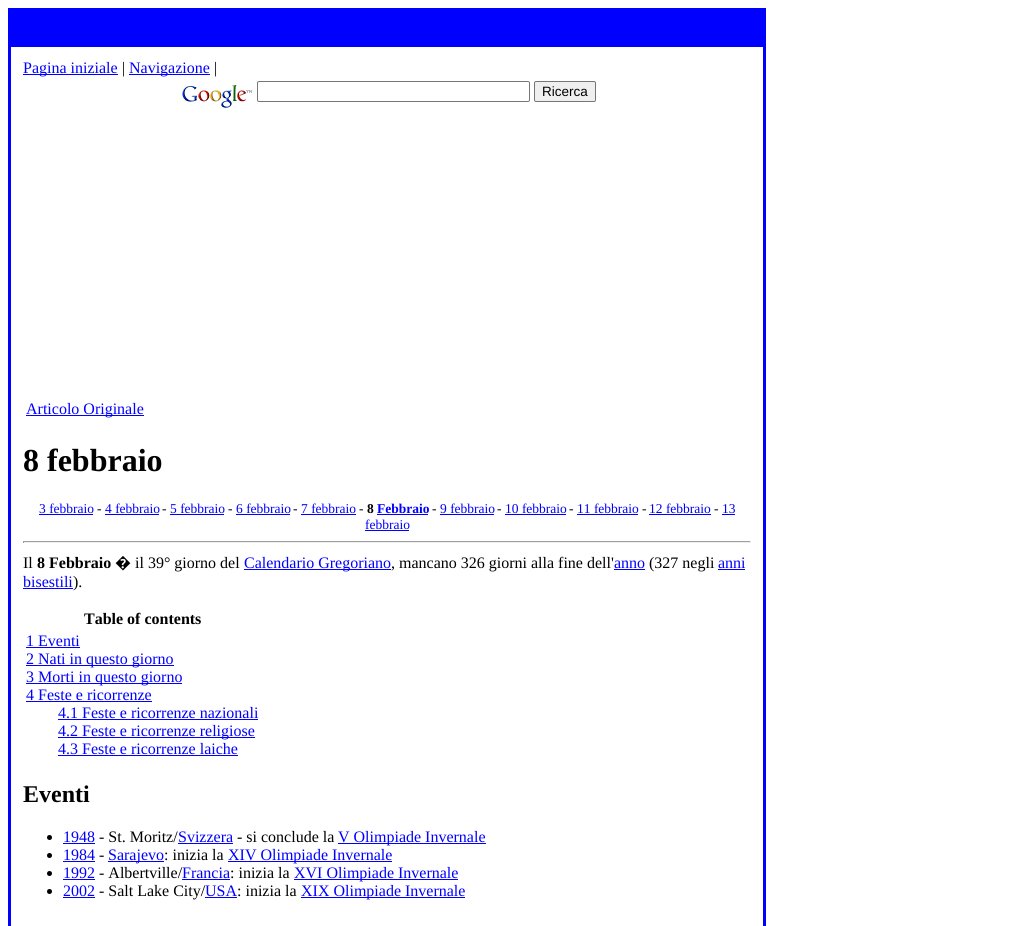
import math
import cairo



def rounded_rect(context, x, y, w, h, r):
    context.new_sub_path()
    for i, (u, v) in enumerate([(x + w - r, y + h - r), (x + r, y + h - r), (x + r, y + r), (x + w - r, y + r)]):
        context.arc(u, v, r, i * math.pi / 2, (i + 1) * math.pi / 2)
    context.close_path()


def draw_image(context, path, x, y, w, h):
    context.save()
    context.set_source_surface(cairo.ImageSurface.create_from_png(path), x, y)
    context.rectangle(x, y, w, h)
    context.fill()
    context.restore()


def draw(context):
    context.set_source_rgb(1, 1, 1)
    context.paint()
    context.set_source_rgb(0, 0, 1)
    context.rectangle(8, 8, 758, 918)
    context.fill()
    context.set_source_rgb(1, 1, 1)
    context.rectangle(11, 47, 752, 879)
    context.fill()
    context.set_source_rgb(0, 0, 1)
    context.rectangle(23, 74, 95, 1)
    context.fill()
    context.rectangle(129, 74, 81, 1)
    context.fill()
    draw_image(context, "images/1.png", 182, 85, 70, 23)
    rounded_rect(context, 257.5, 81.5, 272, 20, 1.5)
    context.set_source_rgb(118 / 255, 118 / 255, 118 / 255)
    context.set_line_width(1)
    context.stroke()
    context.set_source_rgb(239 / 255, 239 / 255, 239 / 255)
    rounded_rect(context, 534.5, 81.5, 61, 20, 1.5)
    context.fill_preserve()
    context.set_source_rgb(118 / 255, 118 / 255, 118 / 255)
    context.stroke()
    context.set_source_rgb(0, 0, 1)
    context.rectangle(26, 415, 118, 1)
    context.fill()
    context.rectangle(39, 514, 54, 1)
    context.fill()
    context.rectangle(105, 514, 54, 1)
    context.fill()
    context.rectangle(170, 514, 54, 1)
    context.fill()
    context.rectangle(236, 514, 54, 1)
    context.fill()
    context.rectangle(301, 514, 55, 1)
    context.fill()
    context.rectangle(377, 514, 51, 1)
    context.fill()
    context.rectangle(440, 514, 54, 1)
    context.fill()
    context.rectangle(505, 514, 61, 1)
    context.fill()
    context.rectangle(577, 514, 61, 1)
    context.fill()
    context.rectangle(649, 514, 62, 1)
    context.fill()
    context.rectangle(722, 514, 13, 1)
    context.fill()
    context.rectangle(365, 530, 44, 1)
    context.fill()
    context.set_source_rgb(159 / 255, 159 / 255, 159 / 255)
    context.rectangle(23, 541, 728, 1)
    context.fill()
    context.set_source_rgb(238 / 255, 238 / 255, 238 / 255)
    context.rectangle(750, 541, 1, 2)
    context.fill()
    context.rectangle(23, 542, 728, 1)
    context.fill()
    context.set_source_rgb(159 / 255, 159 / 255, 159 / 255)
    context.rectangle(23, 541, 1, 2)
    context.fill()
    context.set_source_rgb(0, 0, 1)
    context.rectangle(244, 569, 147, 1)
    context.fill()
    context.rectangle(614, 569, 31, 1)
    context.fill()
    context.rectangle(718, 569, 27, 1)
    context.fill()
    context.rectangle(23, 588, 50, 1)
    context.fill()
    context.rectangle(26, 647, 54, 1)
    context.fill()
    context.rectangle(26, 665, 148, 1)
    context.fill()
    context.rectangle(26, 683, 156, 1)
    context.fill()
    context.rectangle(26, 701, 126, 1)
    context.fill()
    context.rectangle(58, 719, 200, 1)
    context.fill()
    context.rectangle(58, 737, 197, 1)
    context.fill()
    context.rectangle(58, 755, 180, 1)
    context.fill()
    context.set_source_rgb(0, 0, 0)
    context.arc(49.5, 837.5, 2.5, 0, 2 * math.pi)
    context.fill()
    context.set_source_rgb(0, 0, 1)
    context.rectangle(63, 843, 32, 1)
    context.fill()
    context.rectangle(178, 843, 55, 1)
    context.fill()
    context.rectangle(338, 843, 148, 1)
    context.fill()
    context.set_source_rgb(0, 0, 0)
    context.arc(49.5, 855.5, 2.5, 0, 2 * math.pi)
    context.fill()
    context.set_source_rgb(0, 0, 1)
    context.rectangle(63, 861, 32, 1)
    context.fill()
    context.rectangle(108, 861, 56, 1)
    context.fill()
    context.rectangle(228, 861, 164, 1)
    context.fill()
    context.set_source_rgb(0, 0, 0)
    context.arc(49.5, 873.5, 2.5, 0, 2 * math.pi)
    context.fill()
    context.set_source_rgb(0, 0, 1)
    context.rectangle(63, 879, 32, 1)
    context.fill()
    context.rectangle(182, 879, 48, 1)
    context.fill()
    context.rectangle(294, 879, 164, 1)
    context.fill()
    context.set_source_rgb(0, 0, 0)
    context.arc(49.5, 891.5, 2.5, 0, 2 * math.pi)
    context.fill()
    context.set_source_rgb(0, 0, 1)
    context.rectangle(63, 897, 32, 1)
    context.fill()
    context.rectangle(301, 897, 164, 1)
    context.fill()
    context.select_font_face("Liberation Serif")
    context.set_font_size(16)
    context.move_to(23, 73)
    context.show_text("Pagina iniziale")
    context.set_source_rgb(0, 0, 0)
    context.move_to(122, 73)
    context.show_text("|")
    context.set_source_rgb(0, 0, 1)
    context.move_to(129, 73)
    context.show_text("Navigazione")
    context.set_source_rgb(0, 0, 0)
    context.move_to(214, 73)
    context.show_text("|")
    context.select_font_face("Liberation Sans")
    context.set_font_size(13.5)
    context.move_to(542, 96)
    context.show_text("Ricerca")
    context.select_font_face("Liberation Serif")
    context.set_font_size(16)
    context.set_source_rgb(0, 0, 1)
    context.move_to(26, 414)
    context.show_text("Articolo Originale")
    context.select_font_face("Liberation Serif", cairo.FontSlant.NORMAL, cairo.FontWeight.BOLD)
    context.set_font_size(32)
    context.set_source_rgb(0, 0, 0)
    context.move_to(23, 471)
    context.show_text("8 febbraio")
    context.select_font_face("Liberation Serif")
    context.set_font_size(13.5)
    context.set_source_rgb(0, 0, 1)
    context.move_to(39, 513)
    context.show_text("3 febbraio")
    context.set_source_rgb(0, 0, 0)
    context.move_to(97, 513)
    context.show_text("-")
    context.set_source_rgb(0, 0, 1)
    context.move_to(105, 513)
    context.show_text("4 febbraio")
    context.set_source_rgb(0, 0, 0)
    context.move_to(162, 513)
    context.show_text("-")
    context.set_source_rgb(0, 0, 1)
    context.move_to(170, 513)
    context.show_text("5 febbraio")
    context.set_source_rgb(0, 0, 0)
    context.move_to(228, 513)
    context.show_text("-")
    context.set_source_rgb(0, 0, 1)
    context.move_to(236, 513)
    context.show_text("6 febbraio")
    context.set_source_rgb(0, 0, 0)
    context.move_to(293, 513)
    context.show_text("-")
    context.set_source_rgb(0, 0, 1)
    context.move_to(301, 513)
    context.show_text("7 febbraio")
    context.set_source_rgb(0, 0, 0)
    context.move_to(359, 513)
    context.show_text("-")
    context.select_font_face("Liberation Serif", cairo.FontSlant.NORMAL, cairo.FontWeight.BOLD)
    context.move_to(367, 513)
    context.show_text("8")
    context.set_source_rgb(0, 0, 1)
    context.move_to(377, 513)
    context.show_text("Febbraio")
    context.select_font_face("Liberation Serif")
    context.set_source_rgb(0, 0, 0)
    context.move_to(432, 513)
    context.show_text("-")
    context.set_source_rgb(0, 0, 1)
    context.move_to(440, 513)
    context.show_text("9 febbraio")
    context.set_source_rgb(0, 0, 0)
    context.move_to(497, 513)
    context.show_text("-")
    context.set_source_rgb(0, 0, 1)
    context.move_to(505, 513)
    context.show_text("10 febbraio")
    context.set_source_rgb(0, 0, 0)
    context.move_to(569, 513)
    context.show_text("-")
    context.set_source_rgb(0, 0, 1)
    context.move_to(577, 513)
    context.show_text("11 febbraio")
    context.set_source_rgb(0, 0, 0)
    context.move_to(642, 513)
    context.show_text("-")
    context.set_source_rgb(0, 0, 1)
    context.move_to(649, 513)
    context.show_text("12 febbraio")
    context.set_source_rgb(0, 0, 0)
    context.move_to(714, 513)
    context.show_text("-")
    context.set_source_rgb(0, 0, 1)
    context.move_to(722, 513)
    context.show_text("13")
    context.move_to(365, 529)
    context.show_text("febbraio")
    context.set_font_size(16)
    context.set_source_rgb(0, 0, 0)
    context.move_to(23, 568)
    context.show_text("Il")
    context.select_font_face("Liberation Serif", cairo.FontSlant.NORMAL, cairo.FontWeight.BOLD)
    context.move_to(37, 568)
    context.show_text("8 Febbraio")
    context.select_font_face("Noto Sans")
    context.move_to(115, 568)
    context.show_text("�")
    context.select_font_face("Liberation Serif")
    context.move_to(135, 568)
    context.show_text("il 39° giorno del")
    context.set_source_rgb(0, 0, 1)
    context.move_to(244, 568)
    context.show_text("Calendario Gregoriano")
    context.set_source_rgb(0, 0, 0)
    context.move_to(391, 568)
    context.show_text(", mancano 326 giorni alla fine dell'")
    context.set_source_rgb(0, 0, 1)
    context.move_to(614, 568)
    context.show_text("anno")
    context.set_source_rgb(0, 0, 0)
    context.move_to(649, 568)
    context.show_text("(327 negli")
    context.set_source_rgb(0, 0, 1)
    context.move_to(718, 568)
    context.show_text("anni")
    context.move_to(23, 587)
    context.show_text("bisestili")
    context.set_source_rgb(0, 0, 0)
    context.move_to(73, 587)
    context.show_text(").")
    context.select_font_face("Liberation Serif", cairo.FontSlant.NORMAL, cairo.FontWeight.BOLD)
    context.move_to(84, 624)
    context.show_text("Table of contents")
    context.select_font_face("Liberation Serif")
    context.set_source_rgb(0, 0, 1)
    context.move_to(26, 646)
    context.show_text("1 Eventi")
    context.move_to(26, 664)
    context.show_text("2 Nati in questo giorno")
    context.move_to(26, 682)
    context.show_text("3 Morti in questo giorno")
    context.move_to(26, 700)
    context.show_text("4 Feste e ricorrenze")
    context.move_to(58, 718)
    context.show_text("4.1 Feste e ricorrenze nazionali")
    context.move_to(58, 736)
    context.show_text("4.2 Feste e ricorrenze religiose")
    context.move_to(58, 754)
    context.show_text("4.3 Feste e ricorrenze laiche")
    context.select_font_face("Liberation Serif", cairo.FontSlant.NORMAL, cairo.FontWeight.BOLD)
    context.set_font_size(24)
    context.set_source_rgb(0, 0, 0)
    context.move_to(23, 802)
    context.show_text("Eventi")
    context.select_font_face("Liberation Serif")
    context.set_font_size(16)
    context.set_source_rgb(0, 0, 1)
    context.move_to(63, 842)
    context.show_text("1948")
    context.set_source_rgb(0, 0, 0)
    context.move_to(99, 842)
    context.show_text("- St. Moritz/")
    context.set_source_rgb(0, 0, 1)
    context.move_to(178, 842)
    context.show_text("Svizzera")
    context.set_source_rgb(0, 0, 0)
    context.move_to(237, 842)
    context.show_text("- si conclude la")
    context.set_source_rgb(0, 0, 1)
    context.move_to(338, 842)
    context.show_text("V Olimpiade Invernale")
    context.move_to(63, 860)
    context.show_text("1984")
    context.set_source_rgb(0, 0, 0)
    context.move_to(99, 860)
    context.show_text("-")
    context.set_source_rgb(0, 0, 1)
    context.move_to(108, 860)
    context.show_text("Sarajevo")
    context.set_source_rgb(0, 0, 0)
    context.move_to(164, 860)
    context.show_text(": inizia la")
    context.set_source_rgb(0, 0, 1)
    context.move_to(228, 860)
    context.show_text("XIV Olimpiade Invernale")
    context.move_to(63, 878)
    context.show_text("1992")
    context.set_source_rgb(0, 0, 0)
    context.move_to(99, 878)
    context.show_text("- Albertville/")
    context.set_source_rgb(0, 0, 1)
    context.move_to(182, 878)
    context.show_text("Francia")
    context.set_source_rgb(0, 0, 0)
    context.move_to(230, 878)
    context.show_text(": inizia la")
    context.set_source_rgb(0, 0, 1)
    context.move_to(294, 878)
    context.show_text("XVI Olimpiade Invernale")
    context.move_to(63, 896)
    context.show_text("2002")
    context.set_source_rgb(0, 0, 0)
    context.move_to(99, 896)
    context.show_text("- Salt Lake City/")
    context.set_source_rgb(0, 0, 1)
    context.move_to(205, 896)
    context.show_text("USA")
    context.rectangle(205, 897, 32, 1)
    context.fill()
    context.set_source_rgb(0, 0, 0)
    context.move_to(237, 896)
    context.show_text(": inizia la")
    context.set_source_rgb(0, 0, 1)
    context.move_to(301, 896)
    context.show_text("XIX Olimpiade Invernale")


surface = cairo.ImageSurface(cairo.Format.RGB24, 1018, 926)
context = cairo.Context(surface)
options = cairo.FontOptions()
options.set_hint_metrics(cairo.HintMetrics.OFF)
options.set_hint_style(cairo.HintStyle.NONE)
context.set_font_options(options)
context.set_miter_limit(4)
draw(context)
surface.write_to_png("out.png")
